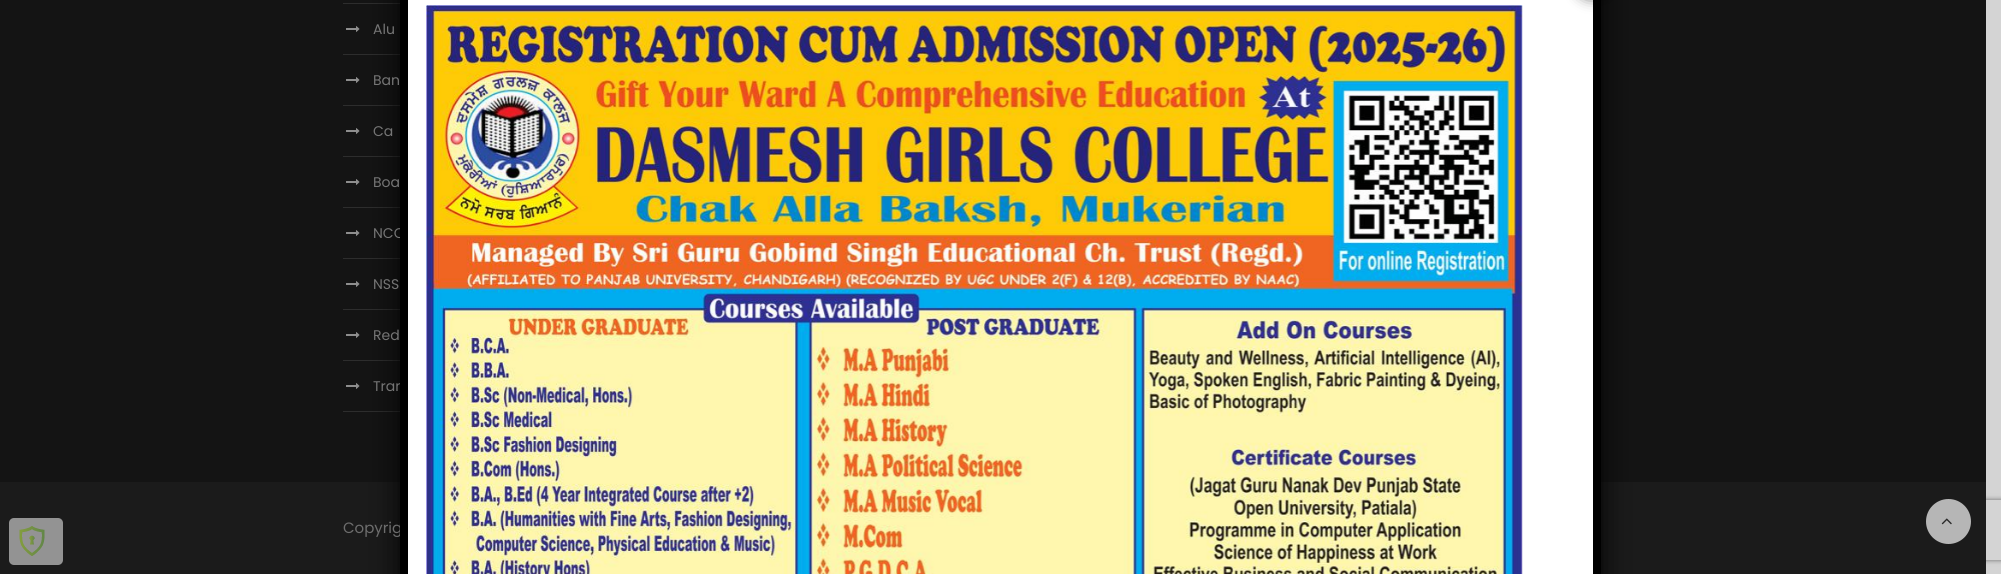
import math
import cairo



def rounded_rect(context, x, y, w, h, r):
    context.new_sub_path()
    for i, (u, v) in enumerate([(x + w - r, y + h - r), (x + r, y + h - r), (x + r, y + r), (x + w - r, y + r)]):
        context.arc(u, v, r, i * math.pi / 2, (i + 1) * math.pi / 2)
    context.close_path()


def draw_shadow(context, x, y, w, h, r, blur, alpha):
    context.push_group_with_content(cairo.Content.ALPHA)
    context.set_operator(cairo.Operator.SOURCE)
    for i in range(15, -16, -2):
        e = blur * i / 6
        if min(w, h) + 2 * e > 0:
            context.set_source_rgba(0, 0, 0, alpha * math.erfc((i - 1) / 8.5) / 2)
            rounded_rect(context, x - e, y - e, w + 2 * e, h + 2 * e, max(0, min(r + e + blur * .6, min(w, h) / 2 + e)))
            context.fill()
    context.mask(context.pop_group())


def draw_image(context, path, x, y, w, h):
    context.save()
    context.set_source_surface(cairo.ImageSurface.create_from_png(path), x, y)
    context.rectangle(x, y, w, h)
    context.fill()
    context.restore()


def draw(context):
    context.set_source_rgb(212 / 255, 212 / 255, 212 / 255)
    context.paint()
    context.set_source_rgb(20 / 255, 20 / 255, 20 / 255)
    context.rectangle(0, 0, 1986, 482)
    context.fill()
    context.set_source_rgb(45 / 255, 45 / 255, 45 / 255)
    context.rectangle(343, 3, 57, 1)
    context.fill()
    context.rectangle(343, 54, 57, 1)
    context.fill()
    draw_image(context, "images/2.png", 346, 26, 14, 6)
    context.rectangle(343, 105, 57, 1)
    context.fill()
    draw_image(context, "images/2.png", 346, 77, 14, 6)
    context.rectangle(343, 156, 57, 1)
    context.fill()
    draw_image(context, "images/2.png", 346, 128, 14, 6)
    context.rectangle(343, 207, 57, 1)
    context.fill()
    draw_image(context, "images/2.png", 346, 179, 14, 6)
    context.rectangle(343, 258, 57, 1)
    context.fill()
    draw_image(context, "images/2.png", 346, 230, 14, 6)
    context.rectangle(343, 309, 57, 1)
    context.fill()
    draw_image(context, "images/2.png", 346, 281, 14, 6)
    context.rectangle(343, 360, 57, 1)
    context.fill()
    draw_image(context, "images/2.png", 346, 332, 14, 6)
    context.rectangle(343, 411, 57, 1)
    context.fill()
    draw_image(context, "images/2.png", 346, 383, 14, 6)
    context.save()
    context.set_fill_rule(cairo.FillRule.EVEN_ODD)
    context.new_path()
    context.move_to(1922, 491)
    context.line_to(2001, 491)
    context.line_to(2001, 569)
    context.line_to(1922, 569)
    context.close_path()
    context.move_to(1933, 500)
    context.line_to(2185, 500)
    context.curve_to(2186, 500, 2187, 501, 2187, 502)
    context.line_to(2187, 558)
    context.curve_to(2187, 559, 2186, 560, 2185, 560)
    context.line_to(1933, 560)
    context.curve_to(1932, 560, 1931, 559, 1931, 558)
    context.line_to(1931, 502)
    context.curve_to(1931, 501, 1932, 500, 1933, 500)
    context.close_path()
    context.clip()
    context.set_source_rgb(106 / 255, 106 / 255, 106 / 255)
    draw_shadow(context, 1931, 500, 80, 60, 2, 2.5, 1)
    context.restore()
    context.set_source_rgb(27 / 255, 27 / 255, 27 / 255)
    context.rectangle(0, 482, 1986, 92)
    context.fill()
    context.set_source_rgb(2 / 255, 2 / 255, 2 / 255)
    draw_shadow(context, 400, -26, 1201, 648, 3, 15, 1)
    context.set_source_rgb(1, 1, 1)
    context.rectangle(408, 0, 1185, 574)
    context.fill()
    context.set_source_rgba(148 / 255, 148 / 255, 148 / 255, 0.99)
    rounded_rect(context, 9, 518, 54, 47, 5)
    context.fill()
    draw_image(context, "images/3.png", 19, 526, 26, 30)
    context.set_source_rgb(182 / 255, 182 / 255, 182 / 255)
    context.arc(1948.5, 521.5, 22.5, 0, 2 * math.pi)
    context.fill()
    draw_image(context, "images/4.png", 1941, 518, 11, 7)
    context.select_font_face("Poppins")
    context.set_font_size(14)
    context.set_source_rgb(117 / 255, 117 / 255, 117 / 255)
    context.move_to(373, 34)
    context.show_text("Alu")
    context.move_to(373, 85)
    context.show_text("Ban")
    context.move_to(373, 136)
    context.show_text("Ca")
    context.move_to(373, 187)
    context.show_text("Boa")
    context.move_to(373, 238)
    context.show_text("NCC")
    context.move_to(373, 289)
    context.show_text("NSS")
    context.move_to(373, 340)
    context.show_text("Red")
    context.move_to(373, 391)
    context.show_text("Tran")
    context.set_font_size(15)
    context.set_source_rgb(109 / 255, 109 / 255, 109 / 255)
    context.move_to(343, 533)
    context.show_text("Copyrig")
    context.new_path()
    context.move_to(404, -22)
    context.line_to(1597, -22)
    context.line_to(1597, 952)
    context.line_to(404, 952)
    context.close_path()
    context.set_source_rgb(0, 0, 0)
    context.set_line_width(8)
    context.stroke()
    context.set_source_rgb(2 / 255, 2 / 255, 2 / 255)
    draw_shadow(context, 1579, -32, 28, 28, 14, 7.5, 0.75)
    draw_image(context, "images/1.png", 426, 5, 1097, 569)


surface = cairo.ImageSurface(cairo.Format.RGB24, 2001, 574)
context = cairo.Context(surface)
options = cairo.FontOptions()
options.set_hint_metrics(cairo.HintMetrics.OFF)
options.set_hint_style(cairo.HintStyle.NONE)
context.set_font_options(options)
context.set_miter_limit(4)
draw(context)
surface.write_to_png("out.png")
